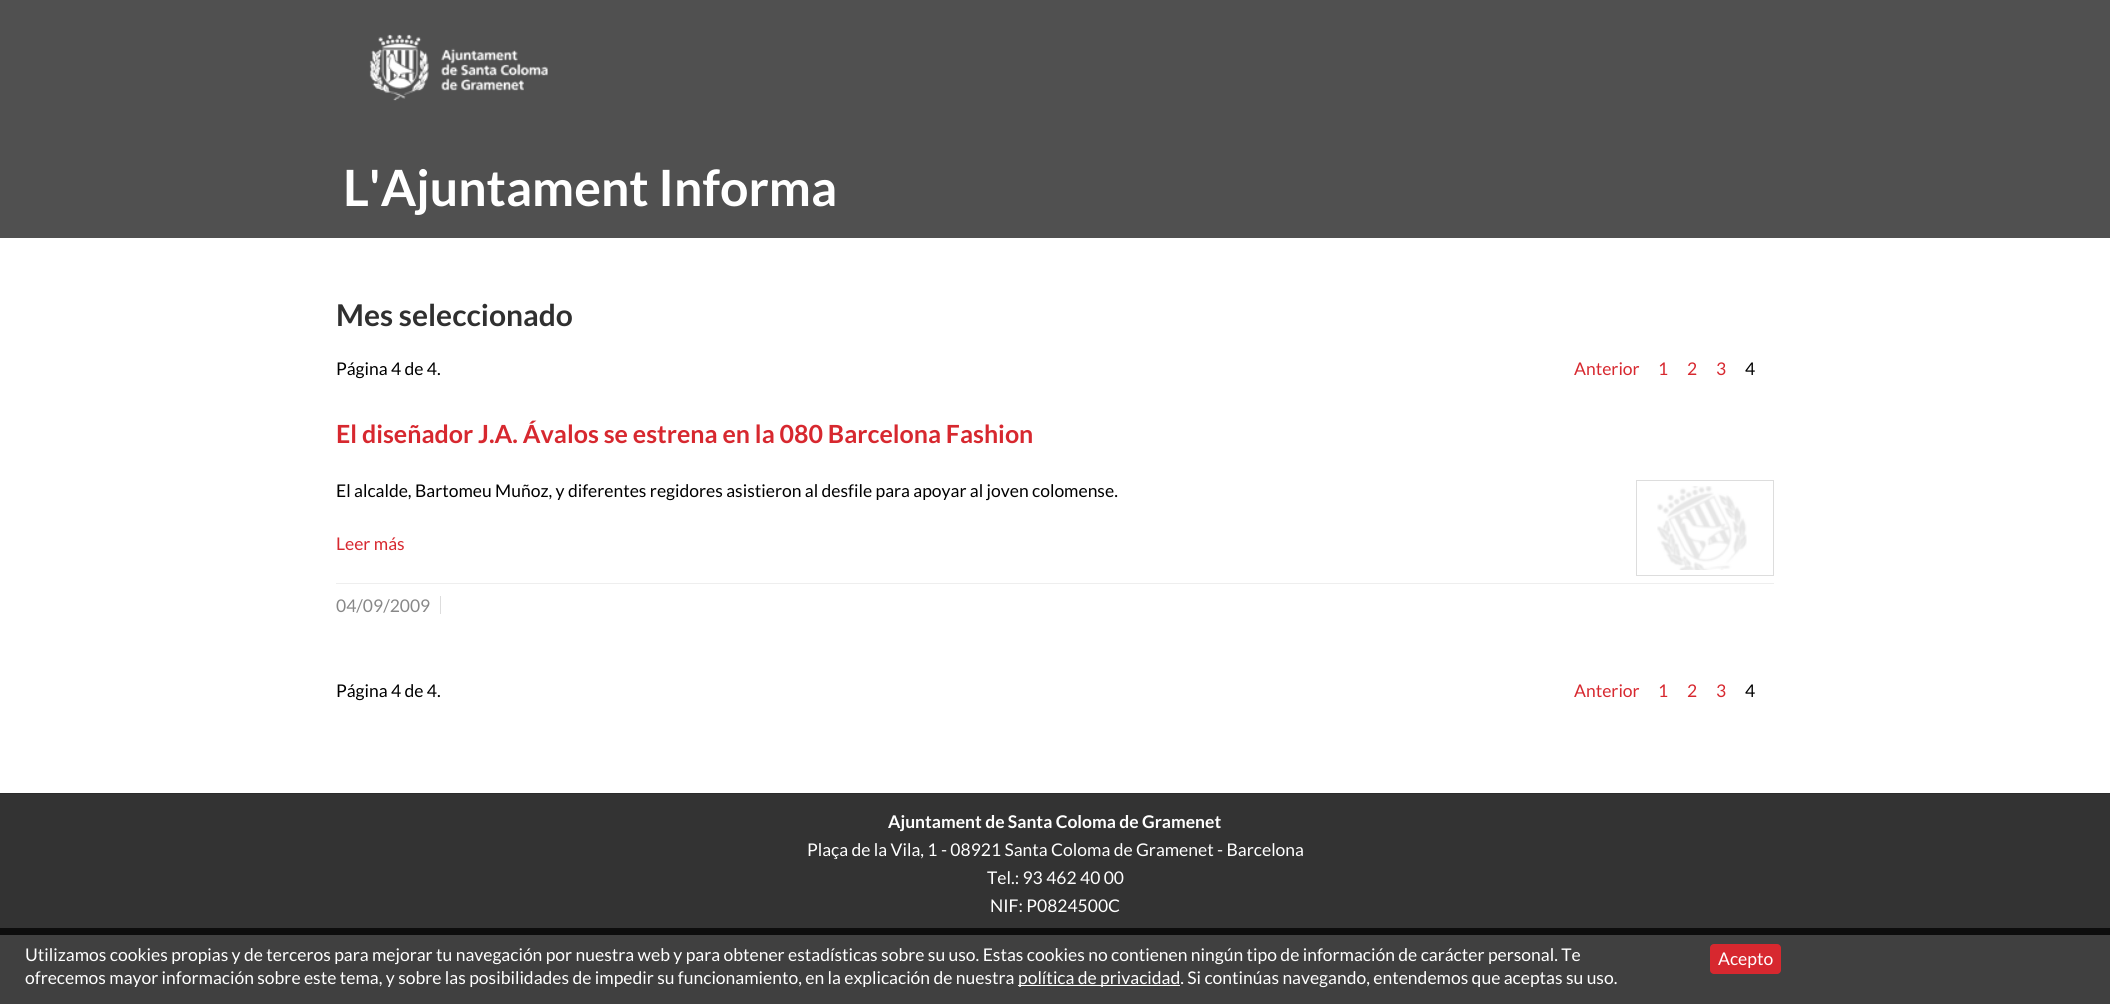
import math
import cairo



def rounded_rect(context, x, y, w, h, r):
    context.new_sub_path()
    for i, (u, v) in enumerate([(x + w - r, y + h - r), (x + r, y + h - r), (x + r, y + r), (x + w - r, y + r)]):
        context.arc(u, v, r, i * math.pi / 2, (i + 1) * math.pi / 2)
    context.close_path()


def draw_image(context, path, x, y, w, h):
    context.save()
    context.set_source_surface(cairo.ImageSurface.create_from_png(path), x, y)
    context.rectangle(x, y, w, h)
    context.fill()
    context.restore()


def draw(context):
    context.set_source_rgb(1, 1, 1)
    context.paint()
    context.set_source_rgb(64 / 255, 64 / 255, 64 / 255)
    context.rectangle(0, 935, 2110, 69)
    context.fill()
    context.set_source_rgb(80 / 255, 80 / 255, 80 / 255)
    context.rectangle(0, 0, 2110, 238)
    context.fill()
    draw_image(context, "images/1.png", 369, 34, 179, 67)
    context.rectangle(1636.5, 480.5, 137, 95)
    context.set_source_rgb(221 / 255, 221 / 255, 221 / 255)
    context.set_line_width(1)
    context.stroke()
    draw_image(context, "images/2.png", 1657, 486, 90, 84)
    context.set_source_rgb(238 / 255, 238 / 255, 238 / 255)
    context.rectangle(336, 583, 1438, 1)
    context.fill()
    context.set_source_rgb(221 / 255, 221 / 255, 221 / 255)
    context.rectangle(440, 596, 1, 18)
    context.fill()
    context.set_source_rgb(51 / 255, 51 / 255, 51 / 255)
    context.rectangle(0, 794, 2110, 134)
    context.fill()
    context.set_source_rgb(13 / 255, 13 / 255, 13 / 255)
    context.rectangle(0, 928, 2110, 7)
    context.fill()
    context.set_source_rgb(43 / 255, 43 / 255, 43 / 255)
    context.rectangle(0, 793, 2110, 1)
    context.fill()
    context.set_source_rgb(1, 1, 1)
    context.rectangle(1018, 985, 162, 1)
    context.fill()
    context.set_source_rgb(215 / 255, 40 / 255, 47 / 255)
    rounded_rect(context, 1710, 944, 71, 30, 4)
    context.fill()
    context.select_font_face("Lato", cairo.FontSlant.NORMAL, cairo.FontWeight.BOLD)
    context.set_font_size(50)
    context.set_source_rgb(1, 1, 1)
    context.move_to(343, 206)
    context.show_text("L'Ajuntament Informa")
    context.set_font_size(30)
    context.set_source_rgb(48 / 255, 48 / 255, 48 / 255)
    context.move_to(336, 326)
    context.show_text("Mes seleccionado")
    context.select_font_face("Lato")
    context.set_font_size(17.5)
    context.set_source_rgb(0, 0, 0)
    context.move_to(336, 375)
    context.show_text("Página 4 de 4.")
    context.set_source_rgb(215 / 255, 40 / 255, 47 / 255)
    context.move_to(1574, 375)
    context.show_text("Anterior")
    context.move_to(1658, 375)
    context.show_text("1")
    context.move_to(1687, 375)
    context.show_text("2")
    context.move_to(1716, 375)
    context.show_text("3")
    context.set_source_rgb(0, 0, 0)
    context.move_to(1745, 375)
    context.show_text("4")
    context.select_font_face("Lato", cairo.FontSlant.NORMAL, cairo.FontWeight.BOLD)
    context.set_font_size(25)
    context.set_source_rgb(215 / 255, 40 / 255, 47 / 255)
    context.move_to(336, 443)
    context.show_text("El diseñador J.A. Ávalos se estrena en la 080 Barcelona Fashion")
    context.select_font_face("Lato")
    context.set_font_size(17.5)
    context.set_source_rgb(0, 0, 0)
    context.move_to(336, 497)
    context.show_text("El alcalde, Bartomeu Muñoz, y diferentes regidores asistieron al desfile para apoyar al joven colomense.")
    context.set_source_rgb(215 / 255, 40 / 255, 47 / 255)
    context.move_to(336, 550)
    context.show_text("Leer más")
    context.set_source_rgb(136 / 255, 136 / 255, 136 / 255)
    context.move_to(336, 612)
    context.show_text("04/09/2009")
    context.set_source_rgb(0, 0, 0)
    context.move_to(336, 697)
    context.show_text("Página 4 de 4.")
    context.set_source_rgb(215 / 255, 40 / 255, 47 / 255)
    context.move_to(1574, 697)
    context.show_text("Anterior")
    context.move_to(1658, 697)
    context.show_text("1")
    context.move_to(1687, 697)
    context.show_text("2")
    context.move_to(1716, 697)
    context.show_text("3")
    context.set_source_rgb(0, 0, 0)
    context.move_to(1745, 697)
    context.show_text("4")
    context.select_font_face("Lato", cairo.FontSlant.NORMAL, cairo.FontWeight.BOLD)
    context.set_source_rgb(1, 1, 1)
    context.move_to(888, 828)
    context.show_text("Ajuntament de Santa Coloma de Gramenet")
    context.select_font_face("Lato")
    context.move_to(807, 856)
    context.show_text("Plaça de la Vila, 1 - 08921 Santa Coloma de Gramenet - Barcelona")
    context.move_to(987, 884)
    context.show_text("Tel.: 93 462 40 00")
    context.move_to(990, 912)
    context.show_text("NIF: P0824500C")
    context.move_to(25, 961)
    context.show_text("Utilizamos cookies propias y de terceros para mejorar tu navegación por nuestra web y para obtener estadísticas sobre su uso. Estas cookies no contienen ningún tipo de información de carácter personal. Te")
    context.move_to(25, 984)
    context.show_text("ofrecemos mayor información sobre este tema, y sobre las posibilidades de impedir su funcionamiento, en la explicación de nuestra")
    context.move_to(1018, 984)
    context.show_text("política de privacidad. Si continúas navegando, entendemos que aceptas su uso.")
    context.move_to(1718, 965)
    context.show_text("Acepto")


surface = cairo.ImageSurface(cairo.Format.RGB24, 2110, 1004)
context = cairo.Context(surface)
options = cairo.FontOptions()
options.set_hint_metrics(cairo.HintMetrics.OFF)
options.set_hint_style(cairo.HintStyle.NONE)
context.set_font_options(options)
context.set_miter_limit(4)
draw(context)
surface.write_to_png("out.png")
